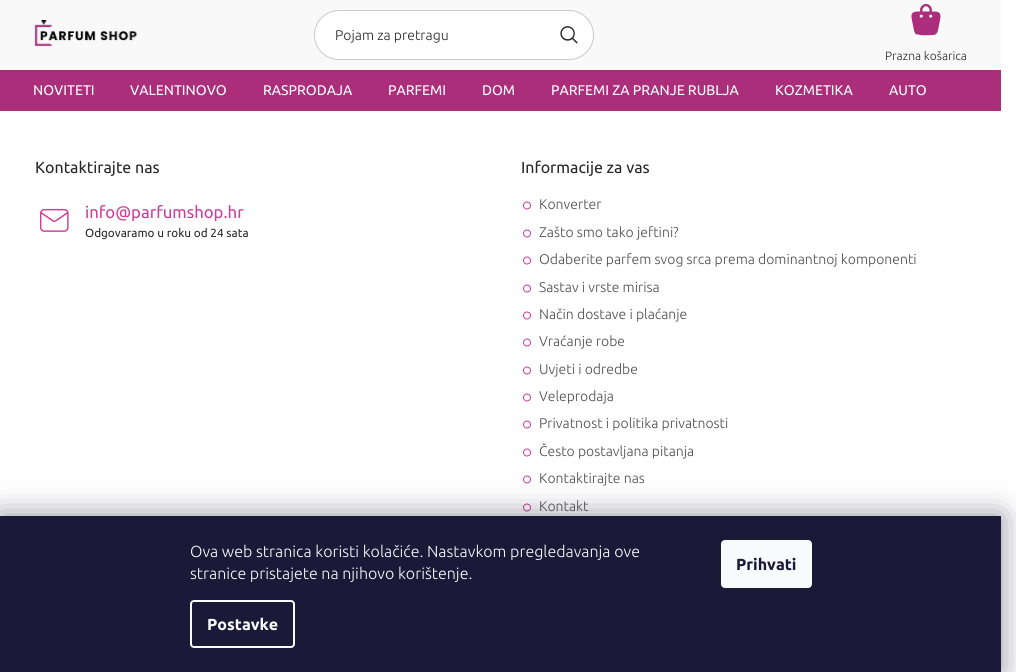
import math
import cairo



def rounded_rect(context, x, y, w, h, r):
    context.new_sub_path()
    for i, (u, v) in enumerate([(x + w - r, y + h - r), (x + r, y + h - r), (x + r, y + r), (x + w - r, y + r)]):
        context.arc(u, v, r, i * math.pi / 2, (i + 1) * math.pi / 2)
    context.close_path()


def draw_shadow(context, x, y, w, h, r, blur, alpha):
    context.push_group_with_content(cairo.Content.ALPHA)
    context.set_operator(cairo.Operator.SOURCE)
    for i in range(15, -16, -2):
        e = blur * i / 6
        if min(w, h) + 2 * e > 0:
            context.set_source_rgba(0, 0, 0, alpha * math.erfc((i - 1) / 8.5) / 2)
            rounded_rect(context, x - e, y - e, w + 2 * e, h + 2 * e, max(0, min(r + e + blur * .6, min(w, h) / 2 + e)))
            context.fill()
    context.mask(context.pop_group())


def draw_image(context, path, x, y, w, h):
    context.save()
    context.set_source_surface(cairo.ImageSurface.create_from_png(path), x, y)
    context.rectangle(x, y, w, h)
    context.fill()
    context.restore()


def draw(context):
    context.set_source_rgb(1, 1, 1)
    context.paint()
    context.set_source_rgb(249 / 255, 249 / 255, 249 / 255)
    context.rectangle(0, 0, 1001, 70)
    context.fill()
    draw_image(context, "images/1.png", 34, 20, 104, 26)
    context.set_source_rgb(1, 1, 1)
    rounded_rect(context, 314.5, 10.5, 279, 49, 24.5)
    context.fill_preserve()
    context.set_source_rgb(201 / 255, 201 / 255, 201 / 255)
    context.set_line_width(1)
    context.stroke()
    draw_image(context, "images/2.png", 560, 26, 18, 18)
    draw_image(context, "images/3.png", 911, 4, 30, 32)
    context.set_source_rgb(171 / 255, 46 / 255, 123 / 255)
    context.rectangle(0, 70, 1001, 41)
    context.fill()
    draw_image(context, "images/4.png", 40, 208, 29, 24)
    draw_image(context, "images/5.png", 523, 201, 8, 9)
    draw_image(context, "images/5.png", 523, 229, 8, 9)
    draw_image(context, "images/5.png", 523, 256, 8, 9)
    draw_image(context, "images/5.png", 523, 284, 8, 9)
    draw_image(context, "images/5.png", 523, 311, 8, 9)
    draw_image(context, "images/5.png", 523, 338, 8, 9)
    draw_image(context, "images/5.png", 523, 366, 8, 9)
    draw_image(context, "images/5.png", 523, 393, 8, 9)
    draw_image(context, "images/5.png", 523, 420, 8, 9)
    draw_image(context, "images/5.png", 523, 448, 8, 9)
    draw_image(context, "images/5.png", 523, 475, 8, 9)
    draw_image(context, "images/5.png", 523, 503, 8, 9)
    context.set_source_rgb(27 / 255, 25 / 255, 57 / 255)
    draw_shadow(context, 0, 516, 1001, 156, 0, 15, 0.5)
    context.set_source_rgb(26 / 255, 25 / 255, 55 / 255)
    context.rectangle(0, 516, 1001, 156)
    context.fill()
    rounded_rect(context, 191, 601, 103, 46, 3)
    context.set_source_rgb(248 / 255, 250 / 255, 251 / 255)
    context.set_line_width(2)
    context.stroke()
    rounded_rect(context, 721, 540, 91, 48, 4)
    context.fill()
    context.select_font_face("Ubuntu Light")
    context.set_font_size(14)
    context.set_source_rgb(40 / 255, 40 / 255, 40 / 255)
    context.move_to(335, 40)
    context.show_text("Pojam za pretragu")
    context.set_font_size(12)
    context.move_to(885, 60)
    context.show_text("Prazna košarica")
    context.select_font_face("Ubuntu")
    context.set_font_size(14)
    context.set_source_rgb(1, 1, 1)
    context.move_to(33, 95)
    context.show_text("NOVITETI")
    context.move_to(130, 95)
    context.show_text("VALENTINOVO")
    context.move_to(263, 95)
    context.show_text("RASPRODAJA")
    context.move_to(388, 95)
    context.show_text("PARFEMI")
    context.move_to(482, 95)
    context.show_text("DOM")
    context.move_to(551, 95)
    context.show_text("PARFEMI ZA PRANJE RUBLJA")
    context.move_to(775, 95)
    context.show_text("KOZMETIKA")
    context.move_to(889, 95)
    context.show_text("AUTO")
    context.set_font_size(16)
    context.set_source_rgb(40 / 255, 40 / 255, 40 / 255)
    context.move_to(35, 173)
    context.show_text("Kontaktirajte nas")
    context.set_font_size(16.75)
    context.set_source_rgb(205 / 255, 62 / 255, 150 / 255)
    context.move_to(85, 218)
    context.show_text("info@parfumshop.hr")
    context.set_font_size(11.75)
    context.set_source_rgb(40 / 255, 40 / 255, 40 / 255)
    context.move_to(85, 237)
    context.show_text("Odgovaramo u roku od 24 sata")
    context.set_font_size(16)
    context.move_to(521, 173)
    context.show_text("Informacije za vas")
    context.select_font_face("Ubuntu Light")
    context.set_font_size(14)
    context.set_source_rgb(77 / 255, 77 / 255, 77 / 255)
    context.move_to(539, 209)
    context.show_text("Konverter")
    context.move_to(539, 237)
    context.show_text("Zašto smo tako jeftini?")
    context.move_to(539, 264)
    context.show_text("Odaberite parfem svog srca prema dominantnoj komponenti")
    context.move_to(539, 292)
    context.show_text("Sastav i vrste mirisa")
    context.move_to(539, 319)
    context.show_text("Način dostave i plaćanje")
    context.move_to(539, 346)
    context.show_text("Vraćanje robe")
    context.move_to(539, 374)
    context.show_text("Uvjeti i odredbe")
    context.move_to(539, 401)
    context.show_text("Veleprodaja")
    context.move_to(539, 428)
    context.show_text("Privatnost i politika privatnosti")
    context.move_to(539, 456)
    context.show_text("Često postavljana pitanja")
    context.move_to(539, 483)
    context.show_text("Kontaktirajte nas")
    context.move_to(539, 511)
    context.show_text("Kontakt")
    context.set_font_size(16)
    context.set_source_rgb(248 / 255, 250 / 255, 251 / 255)
    context.move_to(190, 557)
    context.show_text("Ova web stranica koristi kolačiće. Nastavkom pregledavanja ove")
    context.move_to(190, 579)
    context.show_text("stranice pristajete na njihovo korištenje.")
    context.select_font_face("Ubuntu", cairo.FontSlant.NORMAL, cairo.FontWeight.BOLD)
    context.move_to(207, 630)
    context.show_text("Postavke")
    context.set_source_rgb(26 / 255, 25 / 255, 55 / 255)
    context.move_to(736, 570)
    context.show_text("Prihvati")


surface = cairo.ImageSurface(cairo.Format.RGB24, 1016, 672)
context = cairo.Context(surface)
options = cairo.FontOptions()
options.set_hint_metrics(cairo.HintMetrics.OFF)
options.set_hint_style(cairo.HintStyle.NONE)
context.set_font_options(options)
context.set_miter_limit(4)
draw(context)
surface.write_to_png("out.png")
